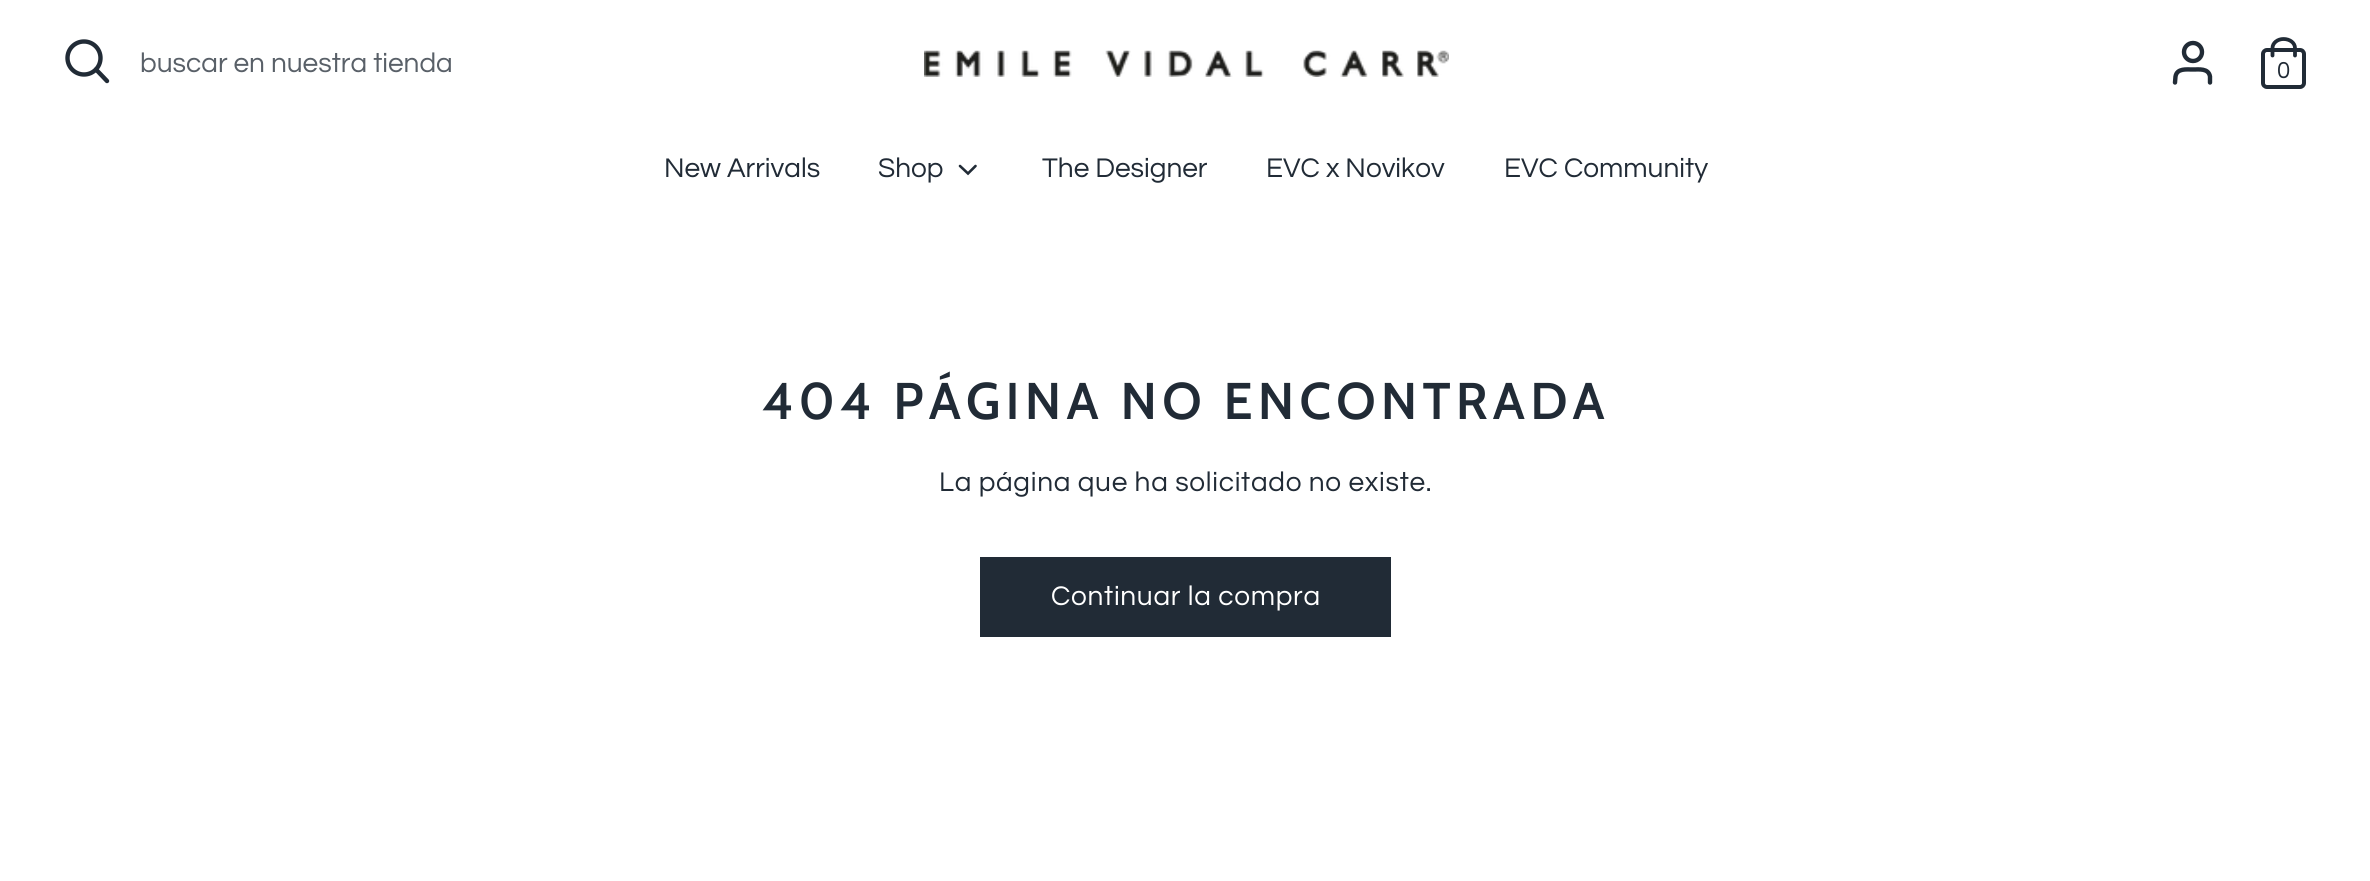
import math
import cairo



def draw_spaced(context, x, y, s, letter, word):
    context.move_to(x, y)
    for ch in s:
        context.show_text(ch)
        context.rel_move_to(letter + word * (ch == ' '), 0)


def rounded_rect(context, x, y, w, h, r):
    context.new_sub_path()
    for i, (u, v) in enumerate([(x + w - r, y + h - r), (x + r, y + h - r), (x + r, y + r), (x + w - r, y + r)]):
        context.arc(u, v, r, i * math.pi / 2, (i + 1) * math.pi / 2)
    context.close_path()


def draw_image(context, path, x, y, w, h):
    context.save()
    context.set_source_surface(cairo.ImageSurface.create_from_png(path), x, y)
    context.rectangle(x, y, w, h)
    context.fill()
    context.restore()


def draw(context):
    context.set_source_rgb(1, 1, 1)
    context.paint()
    context.arc(84, 58, 16.5, 0, 2 * math.pi)
    context.set_source_rgb(33 / 255, 43 / 255, 54 / 255)
    context.set_line_width(4.4)
    context.stroke()
    context.new_path()
    context.move_to(107, 81)
    context.line_to(96, 69.5)
    context.set_line_cap(cairo.LineCap.ROUND)
    context.stroke()
    draw_image(context, "images/1.png", 924, 50, 525, 27)
    context.new_path()
    context.move_to(2210, 82.5)
    context.line_to(2210, 76.5)
    context.curve_to(2208.5, 68, 2199, 69.5, 2193, 69.5)
    context.curve_to(2186.5, 69.5, 2177, 68, 2175.5, 76.5)
    context.line_to(2175, 82.5)
    context.stroke()
    context.arc(2193, 52, 9, 0, 2 * math.pi)
    context.set_line_cap(cairo.LineCap.BUTT)
    context.stroke()
    rounded_rect(context, 2263, 50, 41, 37, 4)
    context.set_line_width(4)
    context.stroke()
    context.new_path()
    context.move_to(2272.5, 55.5)
    context.line_to(2272.5, 48)
    context.curve_to(2272.5, 43, 2277.5, 39, 2283.5, 39)
    context.curve_to(2290, 39, 2295, 43, 2295, 48)
    context.line_to(2295, 55.5)
    context.set_line_width(3.8)
    context.set_line_cap(cairo.LineCap.ROUND)
    context.stroke()
    context.new_path()
    context.move_to(960, 166)
    context.line_to(968, 173.5)
    context.line_to(975.5, 166)
    context.set_line_width(2.6)
    context.stroke()
    context.rectangle(981, 558, 409, 78)
    context.set_line_width(2)
    context.set_line_cap(cairo.LineCap.BUTT)
    context.stroke()
    context.rectangle(982, 559, 407, 76)
    context.fill()
    context.select_font_face("Questrial")
    context.set_font_size(28)
    context.set_source_rgb(89 / 255, 96 / 255, 104 / 255)
    context.move_to(140, 72)
    context.show_text("buscar en nuestra tienda")
    context.set_font_size(24)
    context.set_source_rgb(33 / 255, 43 / 255, 54 / 255)
    context.move_to(2277, 78)
    context.show_text("0")
    context.set_font_size(28)
    context.move_to(664, 177)
    context.show_text("New Arrivals")
    context.move_to(878, 177)
    context.show_text("Shop")
    context.move_to(1042, 177)
    context.show_text("The Designer")
    context.move_to(1266, 177)
    context.show_text("EVC x Novikov")
    context.move_to(1504, 177)
    context.show_text("EVC Community")
    context.select_font_face("Cabin SemiBold")
    context.set_font_size(51.6)
    draw_spaced(context, 762, 419, "404 PÁGINA NO ENCONTRADA", 5.2, 0)
    context.select_font_face("Questrial")
    context.set_font_size(28)
    draw_spaced(context, 939, 491, "La página que ha solicitado no existe.", 0.7, 0)
    context.set_source_rgb(1, 1, 1)
    draw_spaced(context, 1051, 605, "Continuar la compra", 0.7, 0)


surface = cairo.ImageSurface(cairo.Format.RGB24, 2370, 881)
context = cairo.Context(surface)
options = cairo.FontOptions()
options.set_hint_metrics(cairo.HintMetrics.OFF)
options.set_hint_style(cairo.HintStyle.NONE)
context.set_font_options(options)
context.set_miter_limit(4)
draw(context)
surface.write_to_png("out.png")
